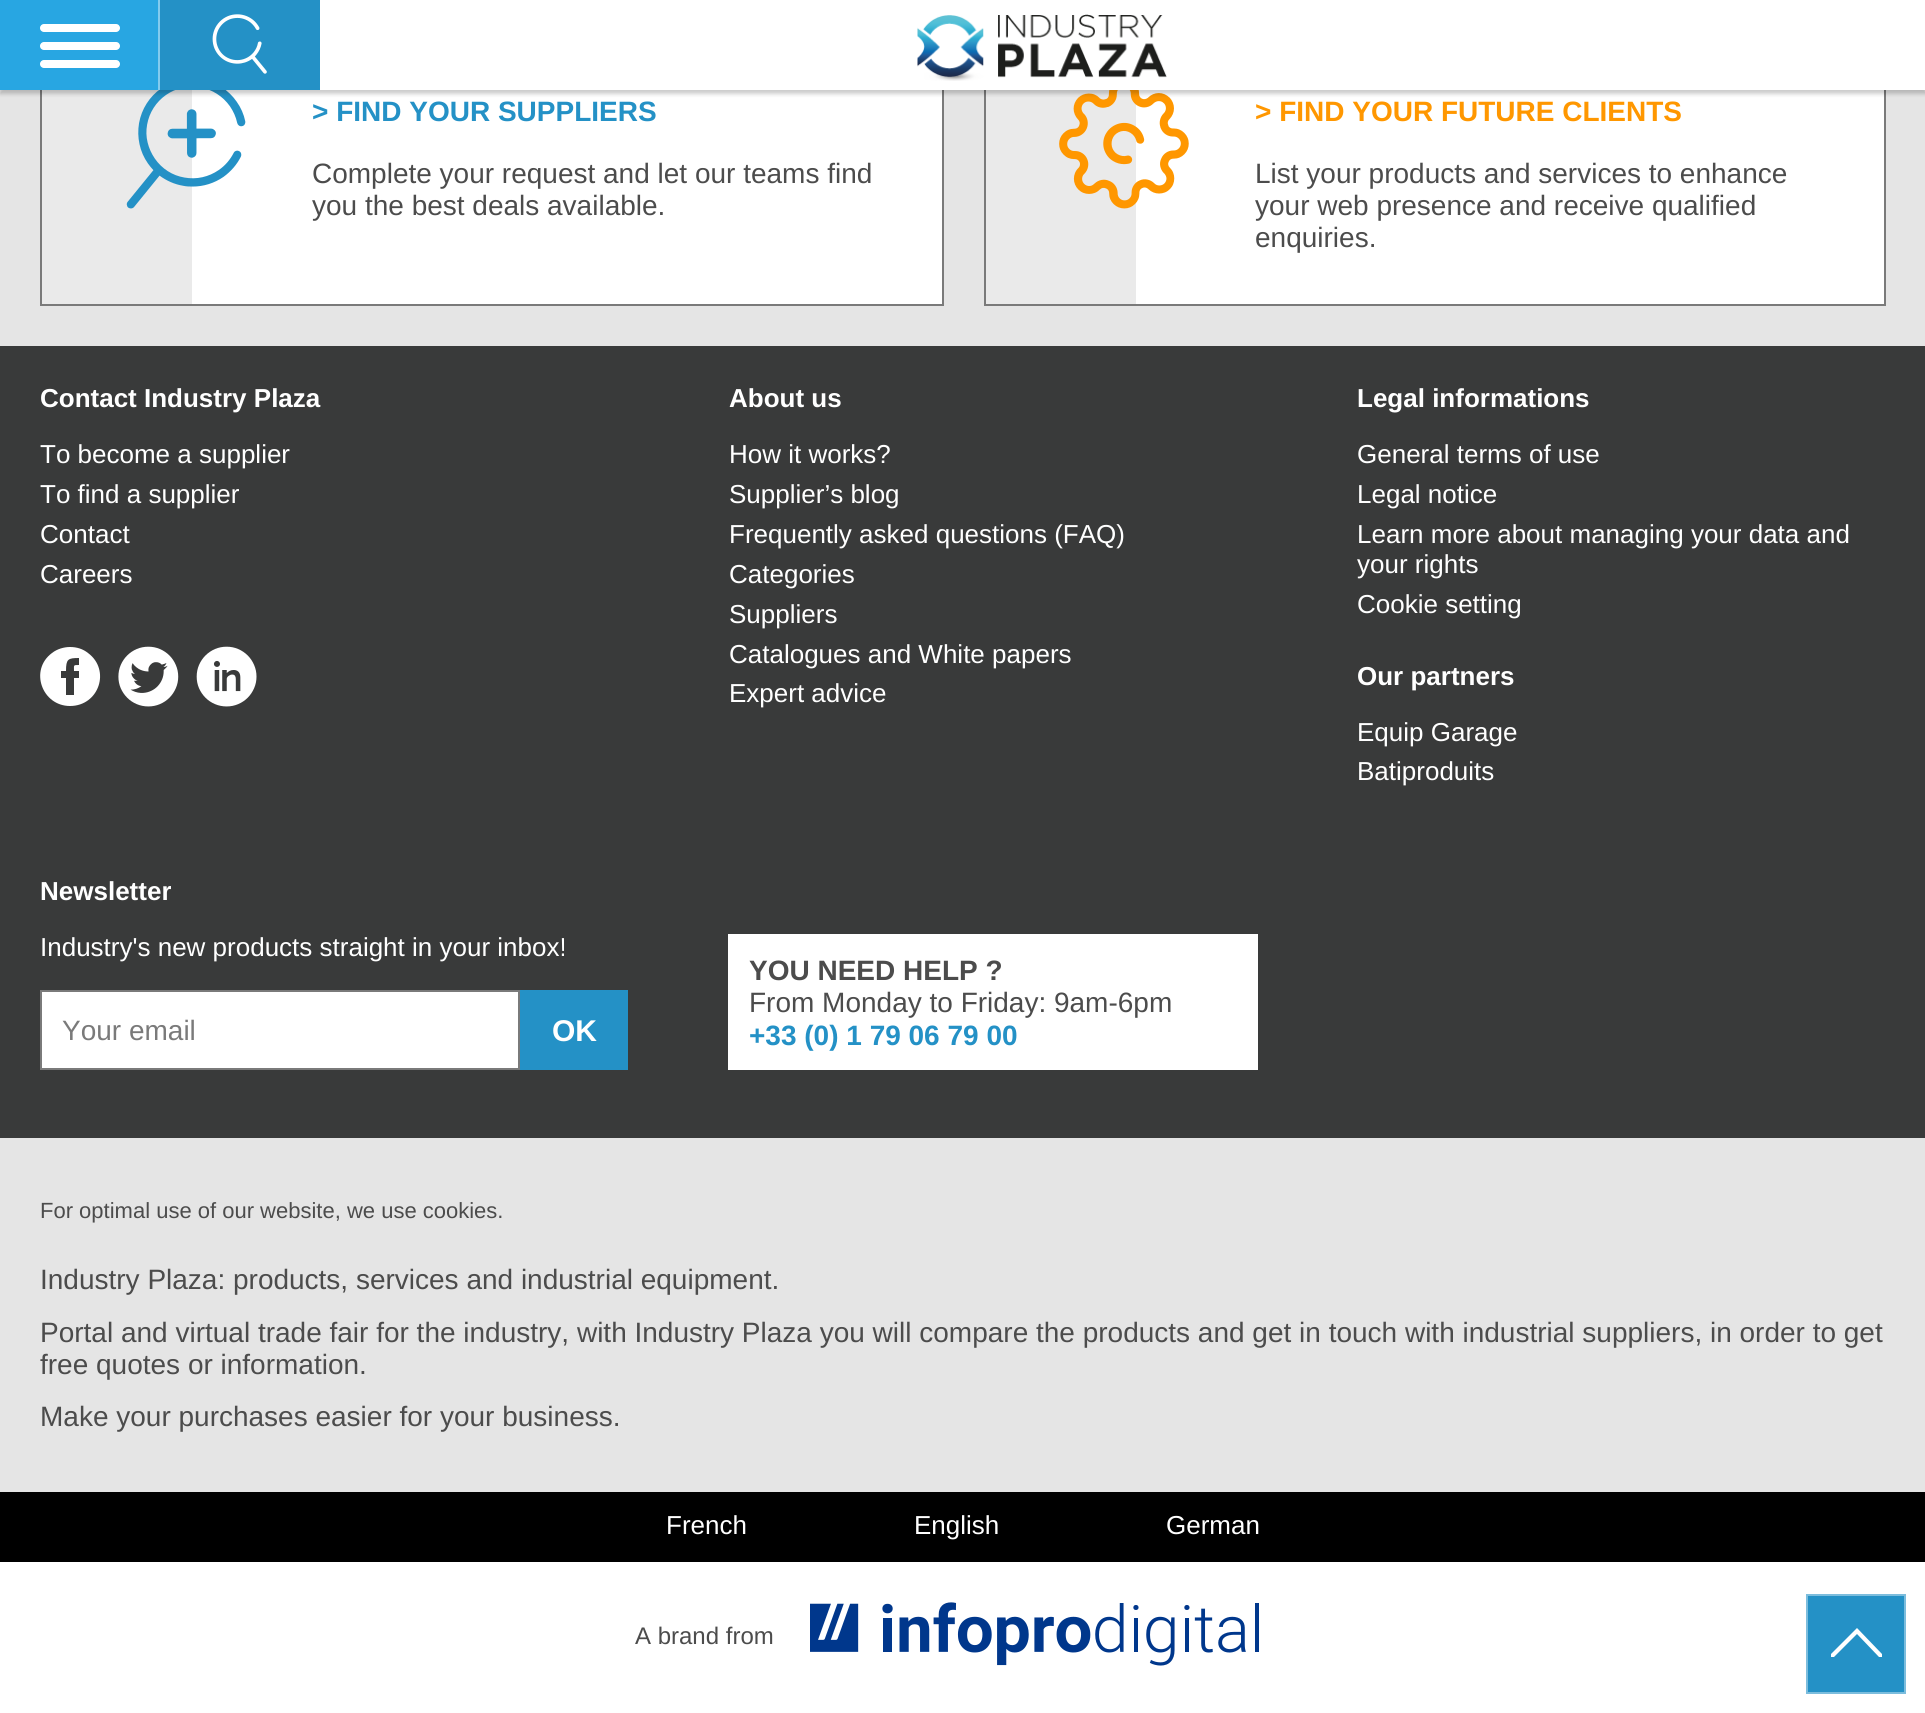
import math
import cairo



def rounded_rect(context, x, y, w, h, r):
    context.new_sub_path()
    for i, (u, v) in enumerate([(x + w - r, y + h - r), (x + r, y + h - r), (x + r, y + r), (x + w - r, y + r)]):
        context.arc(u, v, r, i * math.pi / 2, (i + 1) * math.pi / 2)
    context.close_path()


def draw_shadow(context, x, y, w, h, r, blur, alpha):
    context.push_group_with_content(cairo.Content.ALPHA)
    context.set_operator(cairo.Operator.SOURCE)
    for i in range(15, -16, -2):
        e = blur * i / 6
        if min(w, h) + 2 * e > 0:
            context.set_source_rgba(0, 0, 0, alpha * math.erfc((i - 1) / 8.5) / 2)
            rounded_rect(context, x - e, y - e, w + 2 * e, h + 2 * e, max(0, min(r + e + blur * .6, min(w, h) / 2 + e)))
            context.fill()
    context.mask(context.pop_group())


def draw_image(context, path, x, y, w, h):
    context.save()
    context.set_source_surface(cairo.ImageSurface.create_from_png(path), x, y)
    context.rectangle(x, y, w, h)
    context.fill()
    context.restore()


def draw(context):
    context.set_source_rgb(229 / 255, 229 / 255, 229 / 255)
    context.paint()
    context.set_source_rgb(1, 1, 1)
    context.rectangle(192, 90, 750, 214)
    context.fill()
    context.rectangle(41, -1, 902, 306)
    context.set_source_rgb(122 / 255, 122 / 255, 122 / 255)
    context.stroke()
    context.set_source_rgb(234 / 255, 234 / 255, 234 / 255)
    context.rectangle(42, 90, 150, 214)
    context.fill()
    draw_image(context, "images/3.png", 126, 90, 120, 119)
    context.set_source_rgb(1, 1, 1)
    context.rectangle(1136, 90, 748, 214)
    context.fill()
    context.rectangle(985, -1, 900, 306)
    context.set_source_rgb(122 / 255, 122 / 255, 122 / 255)
    context.stroke()
    context.set_source_rgb(234 / 255, 234 / 255, 234 / 255)
    context.rectangle(986, 90, 150, 214)
    context.fill()
    draw_image(context, "images/4.png", 1059, 90, 130, 119)
    context.set_source_rgb(0, 0, 0)
    draw_shadow(context, 0, 4, 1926, 90, 0, 2, 0.2)
    context.set_source_rgb(1, 1, 1)
    context.rectangle(320, 0, 1605, 90)
    context.fill()
    context.set_source_rgb(40 / 255, 166 / 255, 226 / 255)
    context.rectangle(0, 0, 158, 90)
    context.fill()
    context.set_source_rgb(130 / 255, 203 / 255, 238 / 255)
    context.rectangle(158, 0, 2, 90)
    context.fill()
    context.set_source_rgb(1, 1, 1)
    rounded_rect(context, 40, 24, 80, 8, 4)
    context.fill()
    rounded_rect(context, 40, 42, 80, 8, 4)
    context.fill()
    rounded_rect(context, 40, 60, 80, 8, 4)
    context.fill()
    context.set_source_rgb(36 / 255, 145 / 255, 198 / 255)
    context.rectangle(160, 0, 160, 90)
    context.fill()
    draw_image(context, "images/1.png", 212, 14, 55, 60)
    draw_image(context, "images/2.png", 917, 14, 250, 67)
    context.set_source_rgb(57 / 255, 58 / 255, 58 / 255)
    context.rectangle(0, 346, 1925, 792)
    context.fill()
    context.set_source_rgb(1, 1, 1)
    context.new_path()
    context.move_to(70, 647)
    context.curve_to(64, 647, 57, 649, 52, 653)
    context.curve_to(29, 670, 42, 706, 70, 706)
    context.curve_to(99, 706, 111, 670, 88, 653)
    context.curve_to(83, 649, 77, 647, 70, 647)
    context.close_path()
    context.move_to(79, 665)
    context.curve_to(73, 665, 74, 665, 74, 671)
    context.line_to(79, 671)
    context.line_to(79, 678)
    context.line_to(74, 678)
    context.line_to(74, 695)
    context.line_to(66, 695)
    context.line_to(66, 678)
    context.line_to(61, 678)
    context.line_to(61, 671)
    context.line_to(66, 671)
    context.curve_to(66, 659, 68, 658, 79, 658)
    context.close_path()
    context.fill()
    draw_image(context, "images/5.png", 118, 646, 61, 61)
    draw_image(context, "images/6.png", 196, 646, 61, 61)
    context.rectangle(41, 991, 478, 78)
    context.fill_preserve()
    context.set_source_rgb(122 / 255, 122 / 255, 122 / 255)
    context.stroke()
    context.set_source_rgb(36 / 255, 145 / 255, 198 / 255)
    context.rectangle(520, 990, 108, 80)
    context.fill()
    context.set_source_rgb(1, 1, 1)
    context.rectangle(728, 934, 530, 136)
    context.fill()
    context.set_source_rgb(0, 0, 0)
    context.rectangle(0, 1492, 1925, 70)
    context.fill()
    context.set_source_rgb(1, 1, 1)
    context.rectangle(0, 1562, 1925, 151)
    context.fill()
    draw_image(context, "images/7.png", 810, 1602, 449, 64)
    context.set_source_rgb(36 / 255, 145 / 255, 198 / 255)
    context.rectangle(1807, 1595, 98, 98)
    context.fill_preserve()
    context.set_source_rgb(124 / 255, 189 / 255, 221 / 255)
    context.stroke()
    context.set_source_rgb(1, 1, 1)
    context.new_path()
    context.move_to(1857, 1628)
    context.line_to(1882, 1654)
    context.line_to(1882, 1657)
    context.line_to(1879, 1657)
    context.line_to(1857, 1634)
    context.line_to(1834, 1657)
    context.line_to(1831, 1657)
    context.line_to(1831, 1654)
    context.close_path()
    context.fill()
    context.select_font_face("Liberation Sans", cairo.FontSlant.NORMAL, cairo.FontWeight.BOLD)
    context.set_font_size(28)
    context.set_source_rgb(36 / 255, 145 / 255, 198 / 255)
    context.move_to(312, 121)
    context.show_text("> FIND YOUR SUPPLIERS")
    context.select_font_face("Liberation Sans")
    context.set_source_rgb(76 / 255, 76 / 255, 76 / 255)
    context.move_to(312, 183)
    context.show_text("Complete your request and let our teams find")
    context.move_to(312, 215)
    context.show_text("you the best deals available.")
    context.select_font_face("Liberation Sans", cairo.FontSlant.NORMAL, cairo.FontWeight.BOLD)
    context.set_source_rgb(1, 151 / 255, 0)
    context.move_to(1255, 121)
    context.show_text("> FIND YOUR FUTURE CLIENTS")
    context.select_font_face("Liberation Sans")
    context.set_source_rgb(76 / 255, 76 / 255, 76 / 255)
    context.move_to(1255, 183)
    context.show_text("List your products and services to enhance")
    context.move_to(1255, 215)
    context.show_text("your web presence and receive qualified")
    context.move_to(1255, 247)
    context.show_text("enquiries.")
    context.select_font_face("Liberation Sans", cairo.FontSlant.NORMAL, cairo.FontWeight.BOLD)
    context.set_font_size(26)
    context.set_source_rgb(1, 1, 1)
    context.move_to(40, 407)
    context.show_text("Contact Industry Plaza")
    context.select_font_face("Liberation Sans")
    context.move_to(40, 463)
    context.show_text("To become a supplier")
    context.move_to(40, 503)
    context.show_text("To find a supplier")
    context.move_to(40, 543)
    context.show_text("Contact")
    context.move_to(40, 583)
    context.show_text("Careers")
    context.select_font_face("Liberation Sans", cairo.FontSlant.NORMAL, cairo.FontWeight.BOLD)
    context.move_to(729, 407)
    context.show_text("About us")
    context.select_font_face("Liberation Sans")
    context.move_to(729, 463)
    context.show_text("How it works?")
    context.move_to(729, 503)
    context.show_text("Supplier’s blog")
    context.move_to(729, 543)
    context.show_text("Frequently asked questions (FAQ)")
    context.move_to(729, 583)
    context.show_text("Categories")
    context.move_to(729, 623)
    context.show_text("Suppliers")
    context.move_to(729, 663)
    context.show_text("Catalogues and White papers")
    context.move_to(729, 702)
    context.show_text("Expert advice")
    context.select_font_face("Liberation Sans", cairo.FontSlant.NORMAL, cairo.FontWeight.BOLD)
    context.move_to(1357, 407)
    context.show_text("Legal informations")
    context.select_font_face("Liberation Sans")
    context.move_to(1357, 463)
    context.show_text("General terms of use")
    context.move_to(1357, 503)
    context.show_text("Legal notice")
    context.move_to(1357, 543)
    context.show_text("Learn more about managing your data and")
    context.move_to(1357, 573)
    context.show_text("your rights")
    context.move_to(1357, 613)
    context.show_text("Cookie setting")
    context.select_font_face("Liberation Sans", cairo.FontSlant.NORMAL, cairo.FontWeight.BOLD)
    context.move_to(1357, 685)
    context.show_text("Our partners")
    context.select_font_face("Liberation Sans")
    context.move_to(1357, 741)
    context.show_text("Equip Garage")
    context.move_to(1357, 780)
    context.show_text("Batiproduits")
    context.select_font_face("Liberation Sans", cairo.FontSlant.NORMAL, cairo.FontWeight.BOLD)
    context.move_to(40, 900)
    context.show_text("Newsletter")
    context.select_font_face("Liberation Sans")
    context.move_to(40, 956)
    context.show_text("Industry's new products straight in your inbox!")
    context.set_font_size(28)
    context.set_source_rgb(122 / 255, 122 / 255, 122 / 255)
    context.move_to(62, 1040)
    context.show_text("Your email")
    context.select_font_face("Liberation Sans", cairo.FontSlant.NORMAL, cairo.FontWeight.BOLD)
    context.set_font_size(30)
    context.set_source_rgb(1, 1, 1)
    context.move_to(552, 1041)
    context.show_text("OK")
    context.set_font_size(28)
    context.set_source_rgb(76 / 255, 76 / 255, 76 / 255)
    context.move_to(749, 980)
    context.show_text("YOU NEED HELP ?")
    context.select_font_face("Liberation Sans")
    context.move_to(749, 1012)
    context.show_text("From Monday to Friday: 9am-6pm")
    context.select_font_face("Liberation Sans", cairo.FontSlant.NORMAL, cairo.FontWeight.BOLD)
    context.set_source_rgb(36 / 255, 145 / 255, 198 / 255)
    context.move_to(749, 1045)
    context.show_text("+33 (0) 1 79 06 79 00")
    context.select_font_face("Liberation Sans")
    context.set_font_size(22)
    context.set_source_rgb(76 / 255, 76 / 255, 76 / 255)
    context.move_to(40, 1218)
    context.show_text("For optimal use of our website, we use cookies.")
    context.set_font_size(28)
    context.move_to(40, 1289)
    context.show_text("Industry Plaza: products, services and industrial equipment.")
    context.move_to(40, 1342)
    context.show_text("Portal and virtual trade fair for the industry, with Industry Plaza you will compare the products and get in touch with industrial suppliers, in order to get")
    context.move_to(40, 1374)
    context.show_text("free quotes or information.")
    context.move_to(40, 1426)
    context.show_text("Make your purchases easier for your business.")
    context.set_font_size(26)
    context.set_source_rgb(1, 1, 1)
    context.move_to(666, 1534)
    context.show_text("French")
    context.move_to(914, 1534)
    context.show_text("English")
    context.move_to(1166, 1534)
    context.show_text("German")
    context.set_font_size(24)
    context.set_source_rgb(76 / 255, 76 / 255, 76 / 255)
    context.move_to(635, 1644)
    context.show_text("A brand from")


surface = cairo.ImageSurface(cairo.Format.RGB24, 1925, 1713)
context = cairo.Context(surface)
options = cairo.FontOptions()
options.set_hint_metrics(cairo.HintMetrics.OFF)
options.set_hint_style(cairo.HintStyle.NONE)
context.set_font_options(options)
context.set_miter_limit(4)
draw(context)
surface.write_to_png("out.png")
